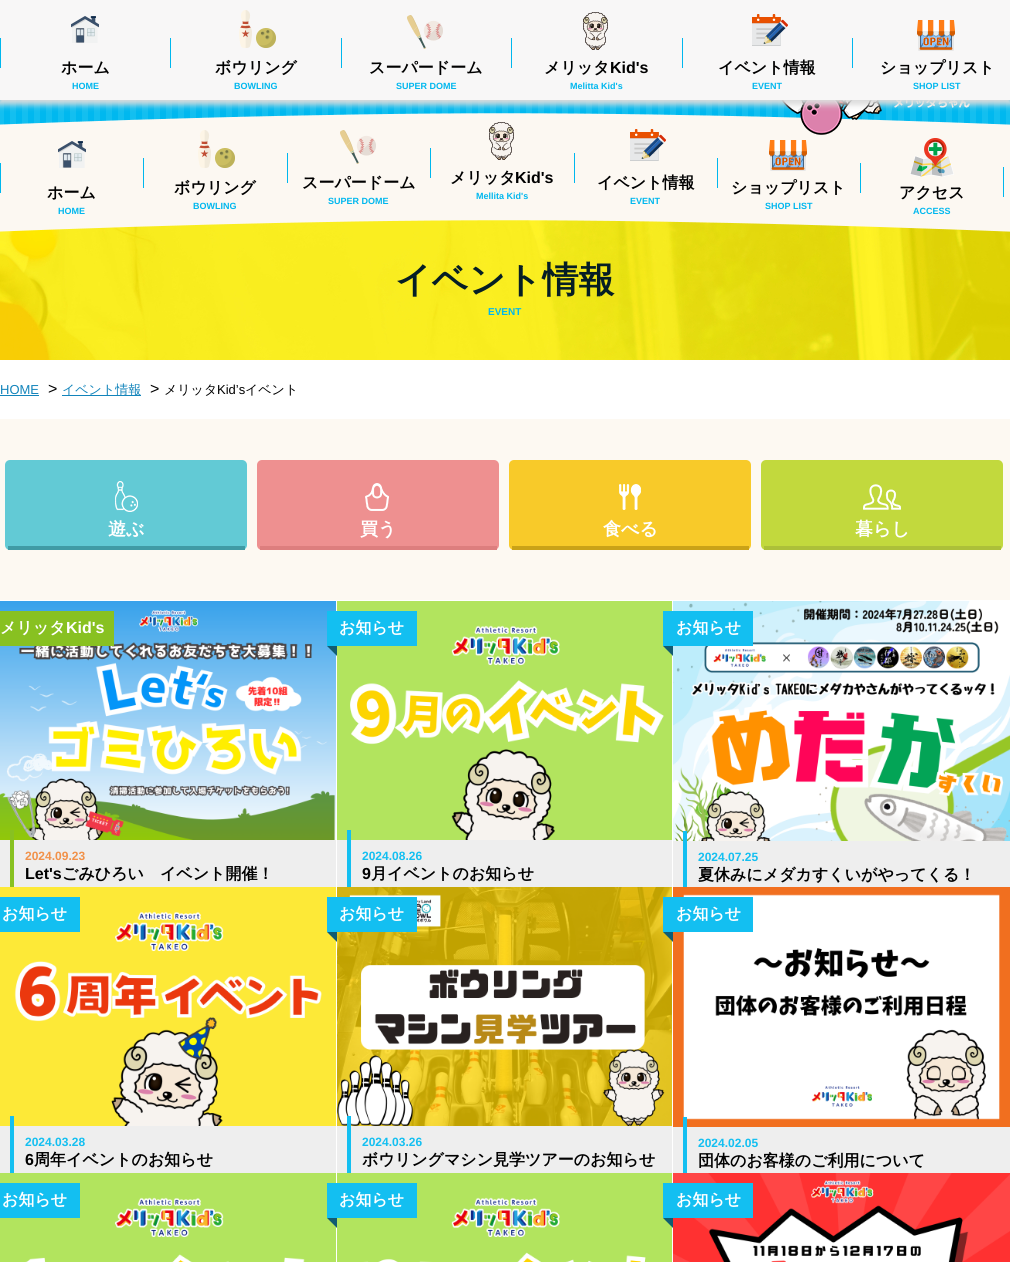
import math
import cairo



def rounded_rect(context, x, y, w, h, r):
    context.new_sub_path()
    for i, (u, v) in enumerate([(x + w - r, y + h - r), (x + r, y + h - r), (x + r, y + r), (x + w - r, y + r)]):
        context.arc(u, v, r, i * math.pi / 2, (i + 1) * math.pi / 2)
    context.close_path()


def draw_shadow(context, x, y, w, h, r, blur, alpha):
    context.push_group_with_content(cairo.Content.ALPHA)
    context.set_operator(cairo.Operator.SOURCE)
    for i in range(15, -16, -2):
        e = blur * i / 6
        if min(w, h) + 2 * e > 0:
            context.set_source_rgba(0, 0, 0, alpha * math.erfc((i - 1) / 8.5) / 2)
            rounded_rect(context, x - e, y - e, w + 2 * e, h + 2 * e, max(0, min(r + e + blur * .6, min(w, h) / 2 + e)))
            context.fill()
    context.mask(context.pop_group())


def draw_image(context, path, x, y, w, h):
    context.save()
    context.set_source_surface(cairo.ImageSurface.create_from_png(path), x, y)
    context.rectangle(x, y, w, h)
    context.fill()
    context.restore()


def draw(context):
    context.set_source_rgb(1, 1, 1)
    context.paint()
    draw_image(context, "images/29.png", 0, 220, 1010, 140)
    draw_image(context, "images/20.png", 0, 100, 1010, 132)
    draw_image(context, "images/21.png", 781, 100, 189, 35)
    context.set_source_rgb(219 / 255, 219 / 255, 219 / 255)
    draw_shadow(context, -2, 1, 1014, 104, 0, 3, 1)
    context.set_source_rgb(248 / 255, 247 / 255, 247 / 255)
    context.rectangle(0, 0, 1010, 100)
    context.fill()
    context.set_source_rgb(0, 183 / 255, 238 / 255)
    context.rectangle(0, 38, 1, 30)
    context.fill()
    draw_image(context, "images/1.png", 71, 16, 28, 27)
    context.rectangle(170, 38, 1, 30)
    context.fill()
    draw_image(context, "images/2.png", 239, 10, 37, 38)
    context.rectangle(341, 38, 1, 30)
    context.fill()
    draw_image(context, "images/3.png", 407, 15, 36, 34)
    context.rectangle(511, 38, 1, 30)
    context.fill()
    draw_image(context, "images/4.png", 583, 12, 25, 38)
    context.rectangle(682, 38, 1, 30)
    context.fill()
    draw_image(context, "images/5.png", 752, 14, 36, 32)
    context.rectangle(852, 38, 1, 30)
    context.fill()
    draw_image(context, "images/6.png", 917, 20, 38, 31)
    context.set_source_rgb(18 / 255, 132 / 255, 187 / 255)
    context.rectangle(0, 395, 39, 1)
    context.fill()
    context.rectangle(62, 395, 79, 1)
    context.fill()
    context.set_source_rgb(253 / 255, 249 / 255, 242 / 255)
    context.rectangle(0, 419, 1010, 181)
    context.fill()
    context.set_source_rgb(98 / 255, 202 / 255, 213 / 255)
    rounded_rect(context, 5, 460, 242, 90, 5)
    context.fill()
    draw_image(context, "images/7.png", 115, 481, 23, 31)
    context.set_source_rgb(64 / 255, 155 / 255, 165 / 255)
    context.rectangle(8, 546, 237, 4)
    context.fill()
    context.set_source_rgb(238 / 255, 144 / 255, 144 / 255)
    rounded_rect(context, 257, 460, 242, 90, 5)
    context.fill()
    draw_image(context, "images/8.png", 365, 483, 24, 28)
    context.set_source_rgb(221 / 255, 126 / 255, 126 / 255)
    context.rectangle(260, 546, 237, 4)
    context.fill()
    context.set_source_rgb(248 / 255, 202 / 255, 41 / 255)
    rounded_rect(context, 509, 460, 242, 90, 5)
    context.fill()
    draw_image(context, "images/9.png", 619, 484, 22, 26)
    context.set_source_rgb(202 / 255, 162 / 255, 23 / 255)
    context.rectangle(512, 546, 237, 4)
    context.fill()
    context.set_source_rgb(194 / 255, 217 / 255, 61 / 255)
    rounded_rect(context, 761, 460, 242, 90, 5)
    context.fill()
    draw_image(context, "images/10.png", 863, 484, 38, 26)
    context.set_source_rgb(172 / 255, 192 / 255, 57 / 255)
    context.rectangle(764, 546, 237, 4)
    context.fill()
    draw_image(context, "images/11.png", 0, 601, 336, 239)
    context.set_source_rgb(136 / 255, 193 / 255, 33 / 255)
    context.rectangle(0, 611, 114, 35)
    context.fill()
    context.set_source_rgb(238 / 255, 238 / 255, 238 / 255)
    context.rectangle(0, 840, 336, 47)
    context.fill()
    context.set_source_rgb(136 / 255, 193 / 255, 33 / 255)
    context.rectangle(10, 830, 4, 57)
    context.fill()
    draw_image(context, "images/12.png", 337, 601, 335, 239)
    context.set_source_rgb(19 / 255, 191 / 255, 241 / 255)
    context.rectangle(327, 611, 90, 35)
    context.fill()
    context.set_source_rgb(17 / 255, 92 / 255, 114 / 255)
    context.new_path()
    context.move_to(337, 646)
    context.line_to(337, 656)
    context.line_to(327, 646)
    context.close_path()
    context.fill()
    context.set_source_rgb(238 / 255, 238 / 255, 238 / 255)
    context.rectangle(337, 840, 335, 47)
    context.fill()
    context.set_source_rgb(19 / 255, 191 / 255, 241 / 255)
    context.rectangle(347, 830, 4, 57)
    context.fill()
    draw_image(context, "images/13.png", 673, 601, 337, 240)
    context.rectangle(663, 611, 90, 35)
    context.fill()
    context.set_source_rgb(17 / 255, 92 / 255, 114 / 255)
    context.new_path()
    context.move_to(673, 646)
    context.line_to(673, 656)
    context.line_to(663, 646)
    context.close_path()
    context.fill()
    context.set_source_rgb(238 / 255, 238 / 255, 238 / 255)
    context.rectangle(673, 841, 337, 46)
    context.fill()
    context.set_source_rgb(19 / 255, 191 / 255, 241 / 255)
    context.rectangle(683, 831, 4, 57)
    context.fill()
    draw_image(context, "images/14.png", 0, 887, 336, 239)
    context.rectangle(0, 897, 80, 35)
    context.fill()
    context.set_source_rgb(238 / 255, 238 / 255, 238 / 255)
    context.rectangle(0, 1126, 336, 47)
    context.fill()
    context.set_source_rgb(19 / 255, 191 / 255, 241 / 255)
    context.rectangle(10, 1116, 4, 57)
    context.fill()
    draw_image(context, "images/15.png", 337, 887, 335, 239)
    context.rectangle(327, 897, 90, 35)
    context.fill()
    context.set_source_rgb(17 / 255, 92 / 255, 114 / 255)
    context.new_path()
    context.move_to(337, 932)
    context.line_to(337, 942)
    context.line_to(327, 932)
    context.close_path()
    context.fill()
    context.set_source_rgb(238 / 255, 238 / 255, 238 / 255)
    context.rectangle(337, 1126, 335, 47)
    context.fill()
    context.set_source_rgb(19 / 255, 191 / 255, 241 / 255)
    context.rectangle(347, 1116, 4, 57)
    context.fill()
    draw_image(context, "images/16.png", 673, 887, 337, 240)
    context.rectangle(663, 897, 90, 35)
    context.fill()
    context.set_source_rgb(17 / 255, 92 / 255, 114 / 255)
    context.new_path()
    context.move_to(673, 932)
    context.line_to(673, 942)
    context.line_to(663, 932)
    context.close_path()
    context.fill()
    context.set_source_rgb(238 / 255, 238 / 255, 238 / 255)
    context.rectangle(673, 1127, 337, 46)
    context.fill()
    context.set_source_rgb(19 / 255, 191 / 255, 241 / 255)
    context.rectangle(683, 1117, 4, 57)
    context.fill()
    draw_image(context, "images/17.png", 0, 1173, 336, 89)
    context.rectangle(0, 1183, 80, 35)
    context.fill()
    draw_image(context, "images/18.png", 337, 1173, 335, 89)
    context.rectangle(327, 1183, 90, 35)
    context.fill()
    context.set_source_rgb(17 / 255, 92 / 255, 114 / 255)
    context.new_path()
    context.move_to(337, 1218)
    context.line_to(337, 1228)
    context.line_to(327, 1218)
    context.close_path()
    context.fill()
    draw_image(context, "images/19.png", 673, 1173, 337, 89)
    context.set_source_rgb(19 / 255, 191 / 255, 241 / 255)
    context.rectangle(663, 1183, 90, 35)
    context.fill()
    context.set_source_rgb(17 / 255, 92 / 255, 114 / 255)
    context.new_path()
    context.move_to(673, 1218)
    context.line_to(673, 1228)
    context.line_to(663, 1218)
    context.close_path()
    context.fill()
    context.set_source_rgb(0, 183 / 255, 238 / 255)
    context.rectangle(0, 163, 1, 30)
    context.fill()
    draw_image(context, "images/22.png", 58, 141, 28, 27)
    context.rectangle(143, 158, 1, 30)
    context.fill()
    draw_image(context, "images/23.png", 198, 130, 37, 38)
    context.rectangle(287, 153, 1, 30)
    context.fill()
    draw_image(context, "images/24.png", 340, 130, 36, 34)
    context.rectangle(430, 148, 1, 30)
    context.fill()
    draw_image(context, "images/25.png", 489, 122, 25, 38)
    context.rectangle(574, 153, 1, 30)
    context.fill()
    draw_image(context, "images/26.png", 630, 129, 36, 32)
    context.rectangle(717, 158, 1, 30)
    context.fill()
    draw_image(context, "images/27.png", 769, 140, 38, 31)
    context.rectangle(860, 163, 1, 30)
    context.fill()
    context.rectangle(1003, 167, 1, 30)
    context.fill()
    draw_image(context, "images/28.png", 910, 138, 44, 39)
    context.select_font_face("WenQuanYi Zen Hei", cairo.FontSlant.NORMAL, cairo.FontWeight.BOLD)
    context.set_font_size(16)
    context.set_source_rgb(0, 0, 0)
    context.move_to(61, 73)
    context.show_text("ホーム")
    context.select_font_face("Liberation Sans", cairo.FontSlant.NORMAL, cairo.FontWeight.BOLD)
    context.set_font_size(9)
    context.set_source_rgb(0, 183 / 255, 238 / 255)
    context.move_to(72, 89)
    context.show_text("HOME")
    context.select_font_face("WenQuanYi Zen Hei", cairo.FontSlant.NORMAL, cairo.FontWeight.BOLD)
    context.set_font_size(16)
    context.set_source_rgb(0, 0, 0)
    context.move_to(215, 73)
    context.show_text("ボウリング")
    context.select_font_face("Liberation Sans", cairo.FontSlant.NORMAL, cairo.FontWeight.BOLD)
    context.set_font_size(9)
    context.set_source_rgb(0, 183 / 255, 238 / 255)
    context.move_to(234, 89)
    context.show_text("BOWLING")
    context.select_font_face("WenQuanYi Zen Hei", cairo.FontSlant.NORMAL, cairo.FontWeight.BOLD)
    context.set_font_size(16)
    context.set_source_rgb(0, 0, 0)
    context.move_to(369, 73)
    context.show_text("スーパードーム")
    context.select_font_face("Liberation Sans", cairo.FontSlant.NORMAL, cairo.FontWeight.BOLD)
    context.set_font_size(9)
    context.set_source_rgb(0, 183 / 255, 238 / 255)
    context.move_to(396, 89)
    context.show_text("SUPER DOME")
    context.select_font_face("WenQuanYi Zen Hei", cairo.FontSlant.NORMAL, cairo.FontWeight.BOLD)
    context.set_font_size(16)
    context.set_source_rgb(0, 0, 0)
    context.move_to(544, 73)
    context.show_text("メリッタ")
    context.select_font_face("Liberation Sans", cairo.FontSlant.NORMAL, cairo.FontWeight.BOLD)
    context.move_to(610, 73)
    context.show_text("Kid's")
    context.set_font_size(9)
    context.set_source_rgb(0, 183 / 255, 238 / 255)
    context.move_to(570, 89)
    context.show_text("Melitta Kid's")
    context.select_font_face("WenQuanYi Zen Hei", cairo.FontSlant.NORMAL, cairo.FontWeight.BOLD)
    context.set_font_size(16)
    context.set_source_rgb(0, 0, 0)
    context.move_to(718, 73)
    context.show_text("イベント情報")
    context.select_font_face("Liberation Sans", cairo.FontSlant.NORMAL, cairo.FontWeight.BOLD)
    context.set_font_size(9)
    context.set_source_rgb(0, 183 / 255, 238 / 255)
    context.move_to(752, 89)
    context.show_text("EVENT")
    context.select_font_face("WenQuanYi Zen Hei", cairo.FontSlant.NORMAL, cairo.FontWeight.BOLD)
    context.set_font_size(16)
    context.set_source_rgb(0, 0, 0)
    context.move_to(880, 73)
    context.show_text("ショップリスト")
    context.select_font_face("Liberation Sans", cairo.FontSlant.NORMAL, cairo.FontWeight.BOLD)
    context.set_font_size(9)
    context.set_source_rgb(0, 183 / 255, 238 / 255)
    context.move_to(913, 89)
    context.show_text("SHOP LIST")
    context.select_font_face("Liberation Sans")
    context.set_font_size(13)
    context.set_source_rgb(18 / 255, 132 / 255, 187 / 255)
    context.move_to(0, 394)
    context.show_text("HOME")
    context.set_font_size(16)
    context.set_source_rgb(0, 0, 0)
    context.move_to(48, 394)
    context.show_text(">")
    context.select_font_face("WenQuanYi Zen Hei Medium")
    context.set_font_size(13)
    context.set_source_rgb(18 / 255, 132 / 255, 187 / 255)
    context.move_to(62, 394)
    context.show_text("イベント情報")
    context.select_font_face("Liberation Sans")
    context.set_font_size(16)
    context.set_source_rgb(0, 0, 0)
    context.move_to(150, 394)
    context.show_text(">")
    context.select_font_face("WenQuanYi Zen Hei Medium")
    context.set_font_size(13)
    context.move_to(164, 394)
    context.show_text("メリッタ")
    context.select_font_face("Liberation Sans")
    context.move_to(217, 394)
    context.show_text("Kid’s")
    context.select_font_face("WenQuanYi Zen Hei Medium")
    context.move_to(245, 394)
    context.show_text("イベント")
    context.select_font_face("WenQuanYi Zen Hei", cairo.FontSlant.NORMAL, cairo.FontWeight.BOLD)
    context.set_font_size(18)
    context.set_source_rgb(1, 1, 1)
    context.move_to(108, 535)
    context.show_text("遊ぶ")
    context.move_to(360, 535)
    context.show_text("買う")
    context.move_to(603, 535)
    context.show_text("食べる")
    context.move_to(855, 535)
    context.show_text("暮らし")
    context.set_font_size(16)
    context.move_to(0, 633)
    context.show_text("メリッタ")
    context.select_font_face("Liberation Sans", cairo.FontSlant.NORMAL, cairo.FontWeight.BOLD)
    context.move_to(66, 633)
    context.show_text("Kid's")
    context.set_font_size(12)
    context.set_source_rgb(241 / 255, 145 / 255, 73 / 255)
    context.move_to(25, 860)
    context.show_text("2024.09.23")
    context.set_font_size(16)
    context.set_source_rgb(0, 0, 0)
    context.move_to(25, 879)
    context.show_text("Let's")
    context.select_font_face("WenQuanYi Zen Hei", cairo.FontSlant.NORMAL, cairo.FontWeight.BOLD)
    context.move_to(62, 879)
    context.show_text("ごみひろい　イベント開催！")
    context.set_source_rgb(1, 1, 1)
    context.move_to(339, 633)
    context.show_text("お知らせ")
    context.select_font_face("Liberation Sans", cairo.FontSlant.NORMAL, cairo.FontWeight.BOLD)
    context.set_font_size(12)
    context.set_source_rgb(19 / 255, 191 / 255, 241 / 255)
    context.move_to(362, 860)
    context.show_text("2024.08.26")
    context.set_font_size(16)
    context.set_source_rgb(0, 0, 0)
    context.move_to(362, 879)
    context.show_text("9")
    context.select_font_face("WenQuanYi Zen Hei", cairo.FontSlant.NORMAL, cairo.FontWeight.BOLD)
    context.move_to(371, 879)
    context.show_text("月イベントのお知らせ")
    context.set_source_rgb(1, 1, 1)
    context.move_to(676, 633)
    context.show_text("お知らせ")
    context.select_font_face("Liberation Sans", cairo.FontSlant.NORMAL, cairo.FontWeight.BOLD)
    context.set_font_size(12)
    context.set_source_rgb(19 / 255, 191 / 255, 241 / 255)
    context.move_to(698, 861)
    context.show_text("2024.07.25")
    context.select_font_face("WenQuanYi Zen Hei", cairo.FontSlant.NORMAL, cairo.FontWeight.BOLD)
    context.set_font_size(16)
    context.set_source_rgb(0, 0, 0)
    context.move_to(698, 880)
    context.show_text("夏休みにメダカすくいがやってくる！")
    context.set_source_rgb(1, 1, 1)
    context.move_to(2, 919)
    context.show_text("お知らせ")
    context.select_font_face("Liberation Sans", cairo.FontSlant.NORMAL, cairo.FontWeight.BOLD)
    context.set_font_size(12)
    context.set_source_rgb(19 / 255, 191 / 255, 241 / 255)
    context.move_to(25, 1146)
    context.show_text("2024.03.28")
    context.set_font_size(16)
    context.set_source_rgb(0, 0, 0)
    context.move_to(25, 1165)
    context.show_text("6")
    context.select_font_face("WenQuanYi Zen Hei", cairo.FontSlant.NORMAL, cairo.FontWeight.BOLD)
    context.move_to(34, 1165)
    context.show_text("周年イベントのお知らせ")
    context.set_source_rgb(1, 1, 1)
    context.move_to(339, 919)
    context.show_text("お知らせ")
    context.select_font_face("Liberation Sans", cairo.FontSlant.NORMAL, cairo.FontWeight.BOLD)
    context.set_font_size(12)
    context.set_source_rgb(19 / 255, 191 / 255, 241 / 255)
    context.move_to(362, 1146)
    context.show_text("2024.03.26")
    context.select_font_face("WenQuanYi Zen Hei", cairo.FontSlant.NORMAL, cairo.FontWeight.BOLD)
    context.set_font_size(16)
    context.set_source_rgb(0, 0, 0)
    context.move_to(362, 1165)
    context.show_text("ボウリングマシン見学ツアーのお知らせ")
    context.set_source_rgb(1, 1, 1)
    context.move_to(676, 919)
    context.show_text("お知らせ")
    context.select_font_face("Liberation Sans", cairo.FontSlant.NORMAL, cairo.FontWeight.BOLD)
    context.set_font_size(12)
    context.set_source_rgb(19 / 255, 191 / 255, 241 / 255)
    context.move_to(698, 1147)
    context.show_text("2024.02.05")
    context.select_font_face("WenQuanYi Zen Hei", cairo.FontSlant.NORMAL, cairo.FontWeight.BOLD)
    context.set_font_size(16)
    context.set_source_rgb(0, 0, 0)
    context.move_to(698, 1166)
    context.show_text("団体のお客様のご利用について")
    context.set_source_rgb(1, 1, 1)
    context.move_to(2, 1205)
    context.show_text("お知らせ")
    context.move_to(339, 1205)
    context.show_text("お知らせ")
    context.move_to(676, 1205)
    context.show_text("お知らせ")
    context.set_source_rgb(0, 0, 0)
    context.move_to(47, 198)
    context.show_text("ホーム")
    context.select_font_face("Liberation Sans", cairo.FontSlant.NORMAL, cairo.FontWeight.BOLD)
    context.set_font_size(9)
    context.set_source_rgb(0, 183 / 255, 238 / 255)
    context.move_to(58, 214)
    context.show_text("HOME")
    context.select_font_face("WenQuanYi Zen Hei", cairo.FontSlant.NORMAL, cairo.FontWeight.BOLD)
    context.set_font_size(16)
    context.set_source_rgb(0, 0, 0)
    context.move_to(174, 193)
    context.show_text("ボウリング")
    context.select_font_face("Liberation Sans", cairo.FontSlant.NORMAL, cairo.FontWeight.BOLD)
    context.set_font_size(9)
    context.set_source_rgb(0, 183 / 255, 238 / 255)
    context.move_to(193, 209)
    context.show_text("BOWLING")
    context.select_font_face("WenQuanYi Zen Hei", cairo.FontSlant.NORMAL, cairo.FontWeight.BOLD)
    context.set_font_size(16)
    context.set_source_rgb(0, 0, 0)
    context.move_to(302, 188)
    context.show_text("スーパードーム")
    context.select_font_face("Liberation Sans", cairo.FontSlant.NORMAL, cairo.FontWeight.BOLD)
    context.set_font_size(9)
    context.set_source_rgb(0, 183 / 255, 238 / 255)
    context.move_to(328, 204)
    context.show_text("SUPER DOME")
    context.select_font_face("WenQuanYi Zen Hei", cairo.FontSlant.NORMAL, cairo.FontWeight.BOLD)
    context.set_font_size(16)
    context.set_source_rgb(0, 0, 0)
    context.move_to(450, 183)
    context.show_text("メリッタ")
    context.select_font_face("Liberation Sans", cairo.FontSlant.NORMAL, cairo.FontWeight.BOLD)
    context.move_to(515, 183)
    context.show_text("Kid's")
    context.set_font_size(9)
    context.set_source_rgb(0, 183 / 255, 238 / 255)
    context.move_to(476, 199)
    context.show_text("Mellita Kid's")
    context.select_font_face("WenQuanYi Zen Hei", cairo.FontSlant.NORMAL, cairo.FontWeight.BOLD)
    context.set_font_size(16)
    context.set_source_rgb(0, 0, 0)
    context.move_to(597, 188)
    context.show_text("イベント情報")
    context.select_font_face("Liberation Sans", cairo.FontSlant.NORMAL, cairo.FontWeight.BOLD)
    context.set_font_size(9)
    context.set_source_rgb(0, 183 / 255, 238 / 255)
    context.move_to(630, 204)
    context.show_text("EVENT")
    context.select_font_face("WenQuanYi Zen Hei", cairo.FontSlant.NORMAL, cairo.FontWeight.BOLD)
    context.set_font_size(16)
    context.set_source_rgb(0, 0, 0)
    context.move_to(731, 193)
    context.show_text("ショップリスト")
    context.select_font_face("Liberation Sans", cairo.FontSlant.NORMAL, cairo.FontWeight.BOLD)
    context.set_font_size(9)
    context.set_source_rgb(0, 183 / 255, 238 / 255)
    context.move_to(765, 209)
    context.show_text("SHOP LIST")
    context.select_font_face("WenQuanYi Zen Hei", cairo.FontSlant.NORMAL, cairo.FontWeight.BOLD)
    context.set_font_size(16)
    context.set_source_rgb(0, 0, 0)
    context.move_to(899, 198)
    context.show_text("アクセス")
    context.select_font_face("Liberation Sans", cairo.FontSlant.NORMAL, cairo.FontWeight.BOLD)
    context.set_font_size(9)
    context.set_source_rgb(0, 183 / 255, 238 / 255)
    context.move_to(913, 214)
    context.show_text("ACCESS")
    context.select_font_face("WenQuanYi Zen Hei", cairo.FontSlant.NORMAL, cairo.FontWeight.BOLD)
    context.set_font_size(36)
    context.set_source_rgb(5 / 255, 30 / 255, 37 / 255)
    context.move_to(395, 292)
    context.show_text("イベント情報")
    context.select_font_face("Liberation Sans", cairo.FontSlant.NORMAL, cairo.FontWeight.BOLD)
    context.set_font_size(10)
    context.set_source_rgb(0, 183 / 255, 238 / 255)
    context.move_to(488, 315)
    context.show_text("EVENT")


surface = cairo.ImageSurface(cairo.Format.RGB24, 1010, 1262)
context = cairo.Context(surface)
options = cairo.FontOptions()
options.set_hint_metrics(cairo.HintMetrics.OFF)
options.set_hint_style(cairo.HintStyle.NONE)
context.set_font_options(options)
context.set_miter_limit(4)
draw(context)
surface.write_to_png("out.png")
